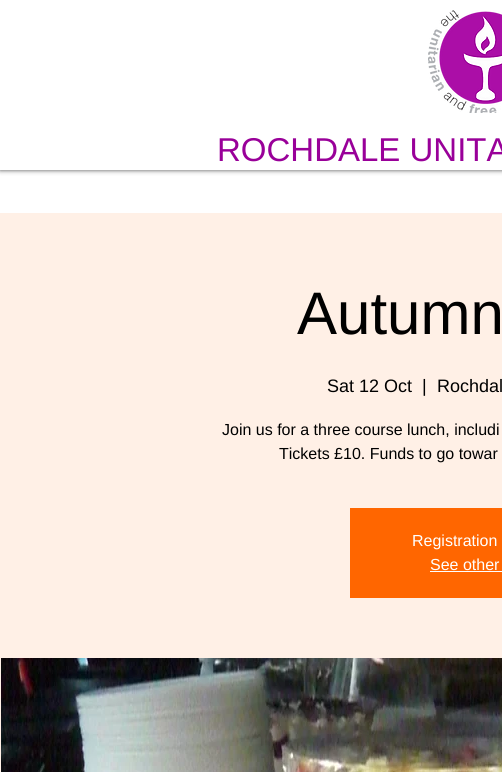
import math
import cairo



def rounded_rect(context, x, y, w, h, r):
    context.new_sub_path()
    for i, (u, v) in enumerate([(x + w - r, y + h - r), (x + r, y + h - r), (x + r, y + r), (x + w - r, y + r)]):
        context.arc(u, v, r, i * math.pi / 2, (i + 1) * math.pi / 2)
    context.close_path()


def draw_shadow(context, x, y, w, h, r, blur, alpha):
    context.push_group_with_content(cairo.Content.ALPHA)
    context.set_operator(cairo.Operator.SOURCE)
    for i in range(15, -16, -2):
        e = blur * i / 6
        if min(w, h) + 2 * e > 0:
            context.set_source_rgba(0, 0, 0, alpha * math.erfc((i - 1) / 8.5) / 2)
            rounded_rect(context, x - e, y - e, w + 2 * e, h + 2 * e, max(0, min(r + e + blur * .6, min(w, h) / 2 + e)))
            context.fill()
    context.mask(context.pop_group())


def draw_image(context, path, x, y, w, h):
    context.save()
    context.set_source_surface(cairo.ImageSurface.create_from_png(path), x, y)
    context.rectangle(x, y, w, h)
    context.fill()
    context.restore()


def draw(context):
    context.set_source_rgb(1, 1, 1)
    context.paint()
    context.set_source_rgb(0, 0, 0)
    draw_shadow(context, 0, 0, 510, 170, 0, 2.5, 0.7)
    context.set_source_rgb(1, 1, 1)
    context.rectangle(0, 0, 502, 170)
    context.fill()
    draw_image(context, "images/1.png", 428, 10, 74, 103)
    context.set_source_rgb(1, 240 / 255, 230 / 255)
    context.rectangle(0, 213, 502, 559)
    context.fill()
    context.set_source_rgb(1, 102 / 255, 0)
    context.rectangle(350, 508, 152, 90)
    context.fill()
    context.set_source_rgb(1, 1, 1)
    context.rectangle(430, 571, 72, 1)
    context.fill()
    draw_image(context, "images/2.png", 1, 658, 501, 114)
    context.select_font_face("Liberation Sans")
    context.set_font_size(33)
    context.set_source_rgb(153 / 255, 0, 153 / 255)
    context.move_to(217, 161)
    context.show_text("ROCHDALE UNITA")
    context.set_font_size(60)
    context.set_source_rgb(0, 0, 0)
    context.move_to(297, 334)
    context.show_text("Autumn")
    context.set_font_size(18)
    context.move_to(327, 392)
    context.show_text("Sat 12 Oct")
    context.move_to(422, 392)
    context.show_text("|")
    context.move_to(437, 392)
    context.show_text("Rochdal")
    context.set_font_size(16)
    context.move_to(222, 435)
    context.show_text("Join us for a three course lunch, includi")
    context.move_to(279, 459)
    context.show_text("Tickets £10. Funds to go towar")
    context.set_source_rgb(1, 1, 1)
    context.move_to(412, 546)
    context.show_text("Registration")
    context.move_to(430, 570)
    context.show_text("See other")


surface = cairo.ImageSurface(cairo.Format.RGB24, 502, 772)
context = cairo.Context(surface)
options = cairo.FontOptions()
options.set_hint_metrics(cairo.HintMetrics.OFF)
options.set_hint_style(cairo.HintStyle.NONE)
context.set_font_options(options)
context.set_miter_limit(4)
draw(context)
surface.write_to_png("out.png")
